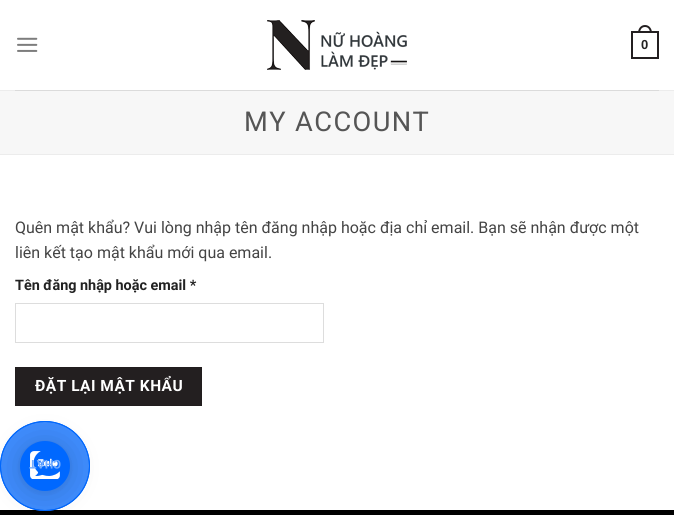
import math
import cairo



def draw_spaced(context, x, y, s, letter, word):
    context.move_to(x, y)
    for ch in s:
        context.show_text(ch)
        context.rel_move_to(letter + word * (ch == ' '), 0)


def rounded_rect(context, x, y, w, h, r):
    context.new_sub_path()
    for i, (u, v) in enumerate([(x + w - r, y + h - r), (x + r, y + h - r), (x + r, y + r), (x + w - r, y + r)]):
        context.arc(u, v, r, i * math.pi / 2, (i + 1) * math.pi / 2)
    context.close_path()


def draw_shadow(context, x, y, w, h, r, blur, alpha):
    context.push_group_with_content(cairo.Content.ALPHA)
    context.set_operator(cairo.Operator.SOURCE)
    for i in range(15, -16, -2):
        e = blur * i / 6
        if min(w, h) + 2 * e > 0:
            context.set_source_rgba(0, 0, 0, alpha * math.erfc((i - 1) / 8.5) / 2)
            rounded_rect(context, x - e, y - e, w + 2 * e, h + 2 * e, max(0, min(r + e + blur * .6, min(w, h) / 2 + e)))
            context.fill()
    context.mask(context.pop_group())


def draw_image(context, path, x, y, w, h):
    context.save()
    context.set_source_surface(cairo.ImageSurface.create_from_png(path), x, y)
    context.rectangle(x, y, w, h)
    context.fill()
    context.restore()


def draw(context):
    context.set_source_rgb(1, 1, 1)
    context.paint()
    draw_image(context, "images/1.png", 17, 37, 21, 15)
    draw_image(context, "images/2.png", 267, 20, 140, 50)
    context.rectangle(632, 32, 26, 26)
    context.set_source_rgb(35 / 255, 31 / 255, 32 / 255)
    context.stroke()
    context.set_fill_rule(cairo.FillRule.EVEN_ODD)
    context.new_path()
    context.move_to(645, 25)
    context.curve_to(649.5, 25, 652, 29, 652, 33)
    context.line_to(638, 33)
    context.curve_to(638, 29, 640.5, 25, 645, 25)
    context.close_path()
    context.move_to(645, 27)
    context.curve_to(648.5, 27, 650, 30, 650, 33)
    context.line_to(640, 33)
    context.curve_to(640, 30, 641.5, 27, 645, 27)
    context.close_path()
    context.fill()
    context.set_source_rgb(236 / 255, 236 / 255, 236 / 255)
    context.rectangle(0, 90, 674, 1)
    context.fill()
    context.set_source_rgb(219 / 255, 219 / 255, 219 / 255)
    context.rectangle(15, 90, 644, 1)
    context.fill()
    context.set_source_rgb(247 / 255, 247 / 255, 247 / 255)
    context.rectangle(0, 91, 674, 63)
    context.fill()
    context.set_source_rgb(236 / 255, 236 / 255, 236 / 255)
    context.rectangle(0, 154, 674, 1)
    context.fill()
    context.rectangle(15.5, 303.5, 308, 39)
    context.set_source_rgb(221 / 255, 221 / 255, 221 / 255)
    context.set_line_width(1)
    context.stroke()
    context.set_source_rgb(35 / 255, 31 / 255, 32 / 255)
    context.rectangle(15.5, 367.5, 186, 38)
    context.fill_preserve()
    context.set_source_rgb(33 / 255, 29 / 255, 30 / 255)
    context.stroke()
    context.set_source_rgb(0, 0, 0)
    context.rectangle(0, 510, 674, 5)
    context.fill()
    context.set_source_rgba(0, 104 / 255, 1, 0.5)
    context.arc(45, 466, 44.5, 0, 2 * math.pi)
    context.fill_preserve()
    context.set_source_rgb(0, 104 / 255, 1)
    context.stroke()
    context.set_source_rgba(0, 104 / 255, 1, 0.5)
    context.arc(45, 466, 44.5, 0, 2 * math.pi)
    context.fill_preserve()
    context.set_source_rgb(0, 104 / 255, 1)
    context.stroke()
    context.set_source_rgb(0, 0, 0)
    draw_shadow(context, 20, 443, 50, 50, 25, 16, 0.16)
    draw_shadow(context, 20, 442, 50, 50, 25, 3, 0.06)
    context.set_source_rgb(0, 104 / 255, 1)
    context.arc(45, 466, 25, 0, 2 * math.pi)
    context.fill()
    draw_image(context, "images/3.png", 30, 451, 30, 28)
    context.select_font_face("Liberation Sans", cairo.FontSlant.NORMAL, cairo.FontWeight.BOLD)
    context.set_font_size(13)
    context.set_source_rgb(34 / 255, 34 / 255, 34 / 255)
    context.move_to(641, 49)
    context.show_text("0")
    context.select_font_face("Roboto")
    context.set_font_size(27.25)
    context.set_source_rgb(85 / 255, 85 / 255, 85 / 255)
    draw_spaced(context, 244, 131, "MY ACCOUNT", 1.4, 0)
    context.set_font_size(16)
    context.set_source_rgb(68 / 255, 68 / 255, 68 / 255)
    context.move_to(15, 233)
    context.show_text("Quên mật khẩu? Vui lòng nhập tên đăng nhập hoặc địa chỉ email. Bạn sẽ nhận được một")
    context.move_to(15, 258)
    context.show_text("liên kết tạo mật khẩu mới qua email.")
    context.select_font_face("Roboto", cairo.FontSlant.NORMAL, cairo.FontWeight.BOLD)
    context.set_font_size(14.4)
    context.set_source_rgb(34 / 255, 34 / 255, 34 / 255)
    context.move_to(15, 290)
    context.show_text("Tên đăng nhập hoặc email *")
    context.set_font_size(15.5)
    context.set_source_rgb(1, 1, 1)
    draw_spaced(context, 35, 391, "ĐẶT LẠI MẬT KHẨU", 0.5, 0)
    context.set_font_size(12)
    context.set_source_rgb(115 / 255, 172 / 255, 1)
    context.save()
    context.translate(61, 460)
    context.rotate(180 * math.pi / 180)
    context.move_to(0, 0)
    context.show_text("CHAT")
    context.restore()


surface = cairo.ImageSurface(cairo.Format.RGB24, 674, 515)
context = cairo.Context(surface)
options = cairo.FontOptions()
options.set_hint_metrics(cairo.HintMetrics.OFF)
options.set_hint_style(cairo.HintStyle.NONE)
context.set_font_options(options)
context.set_miter_limit(4)
draw(context)
surface.write_to_png("out.png")
